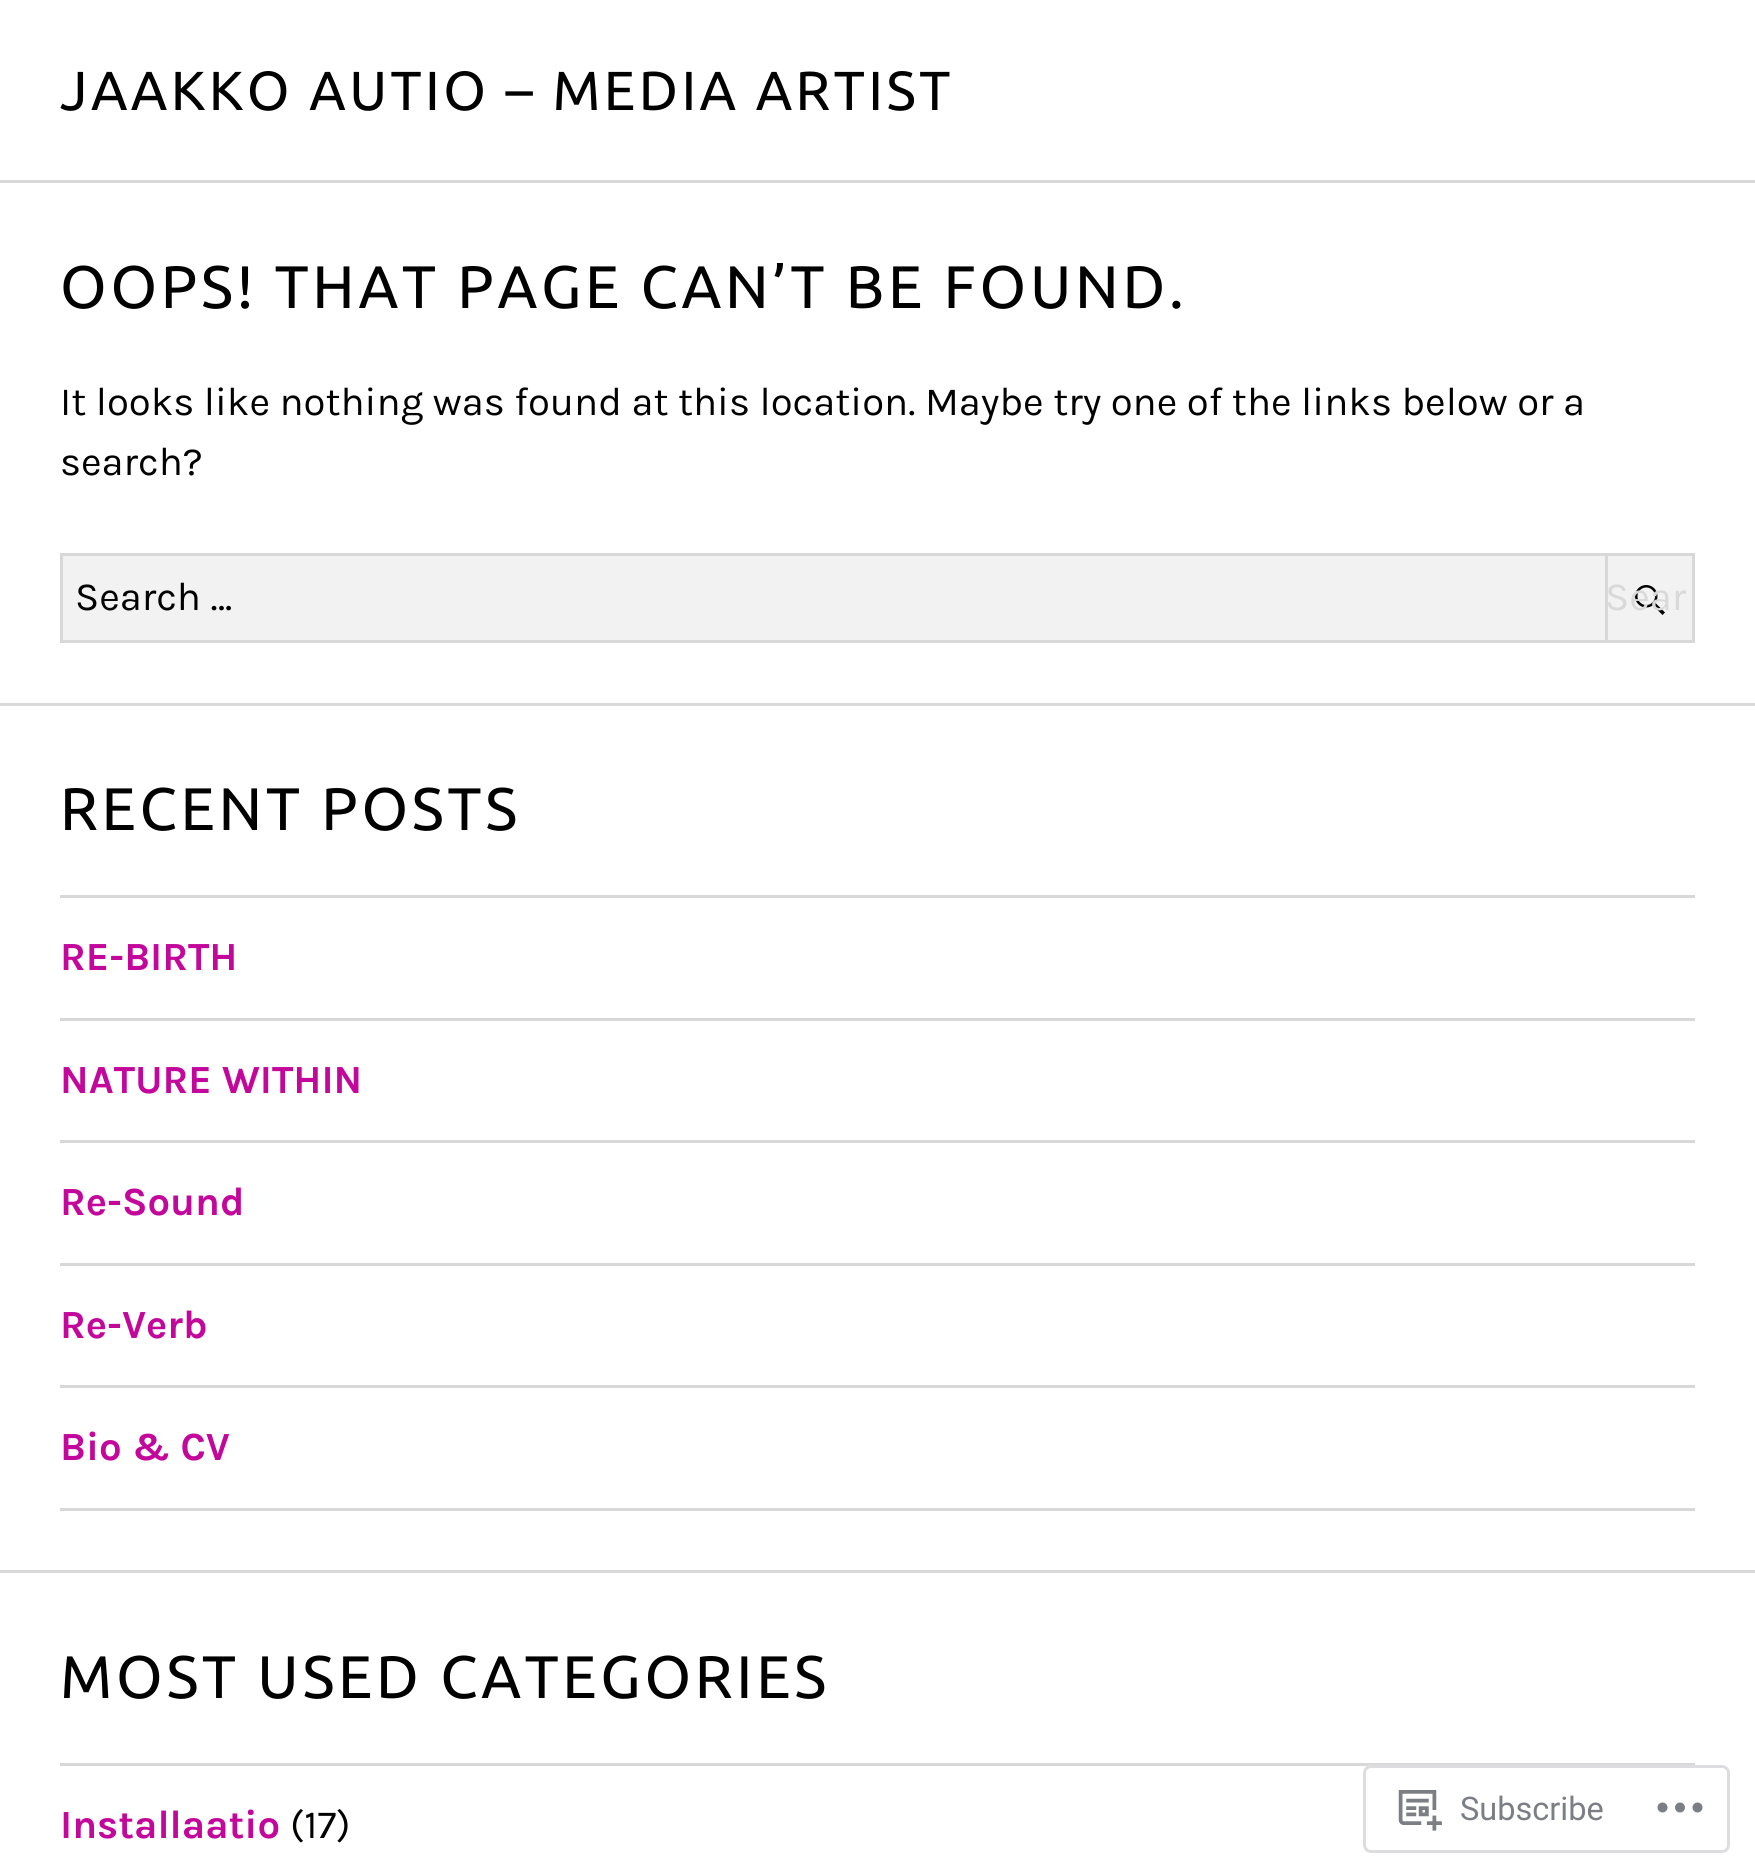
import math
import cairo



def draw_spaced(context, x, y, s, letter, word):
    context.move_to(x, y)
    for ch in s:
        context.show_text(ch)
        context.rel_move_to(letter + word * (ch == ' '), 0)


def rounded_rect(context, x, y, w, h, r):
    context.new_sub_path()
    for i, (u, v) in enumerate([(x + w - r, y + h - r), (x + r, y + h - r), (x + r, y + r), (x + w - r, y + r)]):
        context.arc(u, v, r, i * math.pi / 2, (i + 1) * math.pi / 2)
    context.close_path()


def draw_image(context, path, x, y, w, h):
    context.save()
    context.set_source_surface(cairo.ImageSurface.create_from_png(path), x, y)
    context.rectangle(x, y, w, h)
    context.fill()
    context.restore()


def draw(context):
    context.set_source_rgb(1, 1, 1)
    context.paint()
    context.set_source_rgb(216 / 255, 216 / 255, 216 / 255)
    context.rectangle(0, 180, 1755, 3)
    context.fill()
    context.set_source_rgb(242 / 255, 242 / 255, 242 / 255)
    context.rectangle(63, 556, 1542, 84)
    context.fill()
    context.rectangle(61.5, 554.5, 1632, 87)
    context.set_source_rgb(216 / 255, 216 / 255, 216 / 255)
    context.set_line_width(3)
    context.stroke()
    context.set_source_rgb(242 / 255, 242 / 255, 242 / 255)
    context.rectangle(1606.5, 554.5, 87, 87)
    context.fill_preserve()
    context.set_source_rgb(216 / 255, 216 / 255, 216 / 255)
    context.stroke()
    draw_image(context, "images/1.png", 1635, 585, 30, 30)
    context.set_source_rgb(217 / 255, 217 / 255, 217 / 255)
    context.rectangle(0, 703, 1755, 3)
    context.fill()
    context.set_source_rgb(216 / 255, 216 / 255, 216 / 255)
    context.rectangle(60, 1508, 1635, 3)
    context.fill()
    context.rectangle(60, 895, 1635, 3)
    context.fill()
    context.rectangle(60, 1018, 1635, 3)
    context.fill()
    context.rectangle(60, 1140, 1635, 3)
    context.fill()
    context.rectangle(60, 1263, 1635, 3)
    context.fill()
    context.rectangle(60, 1385, 1635, 3)
    context.fill()
    context.set_source_rgb(217 / 255, 217 / 255, 217 / 255)
    context.rectangle(0, 1570, 1755, 3)
    context.fill()
    context.set_source_rgb(216 / 255, 216 / 255, 216 / 255)
    context.rectangle(60, 1763, 1635, 3)
    context.fill()
    context.set_source_rgba(1, 1, 1, 0.98)
    rounded_rect(context, 1363, 1765, 367, 88, 8)
    context.fill()
    rounded_rect(context, 1364.5, 1766.5, 364, 85, 6.5)
    context.set_source_rgba(220 / 255, 220 / 255, 222 / 255, 0.98)
    context.stroke()
    draw_image(context, "images/2.png", 1398, 1790, 44, 41)
    draw_image(context, "images/3.png", 1657, 1802, 46, 11)
    context.select_font_face("Ubuntu")
    context.set_font_size(55)
    context.set_source_rgb(0, 0, 0)
    draw_spaced(context, 60, 110, "JAAKKO AUTIO – MEDIA ARTIST", 3.45, 0)
    context.set_font_size(60)
    draw_spaced(context, 60, 308, "OOPS! THAT PAGE CAN’T BE FOUND.", 3.75, 0)
    context.select_font_face("Karla")
    context.set_font_size(40)
    context.move_to(60, 415)
    context.show_text("It looks like nothing was found at this location. Maybe try one of the links below or a")
    context.move_to(60, 475)
    context.show_text("search?")
    context.move_to(75, 610)
    context.show_text("Search …")
    context.set_source_rgb(217 / 255, 217 / 255, 217 / 255)
    context.move_to(1605, 610)
    context.show_text("Sear")
    context.select_font_face("Ubuntu")
    context.set_font_size(60)
    context.set_source_rgb(0, 0, 0)
    draw_spaced(context, 60, 830, "RECENT POSTS", 3.75, 0)
    context.select_font_face("Karla", cairo.FontSlant.NORMAL, cairo.FontWeight.BOLD)
    context.set_font_size(40)
    context.set_source_rgb(196 / 255, 7 / 255, 155 / 255)
    context.move_to(60, 970)
    context.show_text("RE-BIRTH")
    context.move_to(60, 1093)
    context.show_text("NATURE WITHIN")
    context.move_to(60, 1215)
    context.show_text("Re-Sound")
    context.move_to(60, 1338)
    context.show_text("Re-Verb")
    context.move_to(60, 1460)
    context.show_text("Bio & CV")
    context.select_font_face("Ubuntu")
    context.set_font_size(60)
    context.set_source_rgb(0, 0, 0)
    draw_spaced(context, 60, 1698, "MOST USED CATEGORIES", 3.75, 0)
    context.select_font_face("Karla", cairo.FontSlant.NORMAL, cairo.FontWeight.BOLD)
    context.set_font_size(40)
    context.set_source_rgb(196 / 255, 7 / 255, 155 / 255)
    context.move_to(60, 1838)
    context.show_text("Installaatio")
    context.select_font_face("Karla")
    context.set_source_rgb(0, 0, 0)
    context.move_to(290, 1838)
    context.show_text("(17)")
    context.select_font_face("Roboto")
    context.set_font_size(32.5)
    context.set_source_rgb(123 / 255, 127 / 255, 133 / 255)
    context.move_to(1460, 1820)
    context.show_text("Subscribe")


surface = cairo.ImageSurface(cairo.Format.RGB24, 1755, 1876)
context = cairo.Context(surface)
options = cairo.FontOptions()
options.set_hint_metrics(cairo.HintMetrics.OFF)
options.set_hint_style(cairo.HintStyle.NONE)
context.set_font_options(options)
context.set_miter_limit(4)
draw(context)
surface.write_to_png("out.png")
